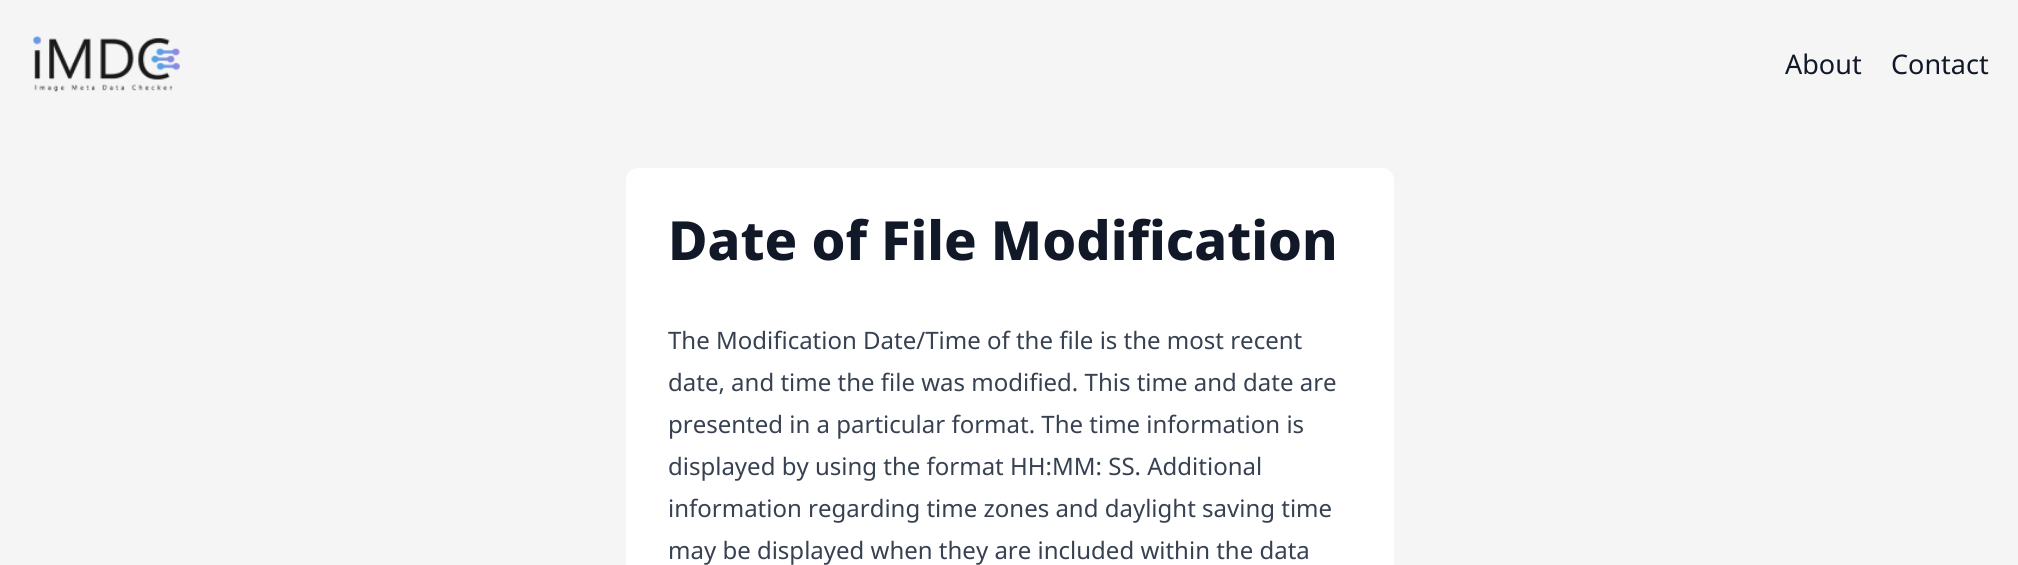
import math
import cairo



def rounded_rect(context, x, y, w, h, r):
    context.new_sub_path()
    for i, (u, v) in enumerate([(x + w - r, y + h - r), (x + r, y + h - r), (x + r, y + r), (x + w - r, y + r)]):
        context.arc(u, v, r, i * math.pi / 2, (i + 1) * math.pi / 2)
    context.close_path()


def draw_image(context, path, x, y, w, h):
    context.save()
    context.set_source_surface(cairo.ImageSurface.create_from_png(path), x, y)
    context.rectangle(x, y, w, h)
    context.fill()
    context.restore()


def draw(context):
    context.set_source_rgb(245 / 255, 245 / 255, 245 / 255)
    context.paint()
    draw_image(context, "images/1.png", 32, 35, 148, 57)
    context.set_source_rgb(1, 1, 1)
    rounded_rect(context, 626, 168, 768, 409, 12)
    context.fill()
    context.select_font_face("Noto Sans")
    context.set_font_size(27)
    context.set_source_rgb(17 / 255, 24 / 255, 39 / 255)
    context.move_to(1785, 74)
    context.show_text("About")
    context.move_to(1891, 74)
    context.show_text("Contact")
    context.select_font_face("Noto Sans ExtraBold")
    context.set_font_size(54)
    context.move_to(668, 260)
    context.show_text("Date of File Modification")
    context.select_font_face("Noto Sans")
    context.set_font_size(24)
    context.set_source_rgb(55 / 255, 65 / 255, 81 / 255)
    context.move_to(668, 349)
    context.show_text("The Modification Date/Time of the file is the most recent")
    context.move_to(668, 391)
    context.show_text("date, and time the file was modified. This time and date are")
    context.move_to(668, 433)
    context.show_text("presented in a particular format. The time information is")
    context.move_to(668, 475)
    context.show_text("displayed by using the format HH:MM: SS. Additional")
    context.move_to(668, 517)
    context.show_text("information regarding time zones and daylight saving time")
    context.move_to(668, 559)
    context.show_text("may be displayed when they are included within the data")


surface = cairo.ImageSurface(cairo.Format.RGB24, 2018, 565)
context = cairo.Context(surface)
options = cairo.FontOptions()
options.set_hint_metrics(cairo.HintMetrics.OFF)
options.set_hint_style(cairo.HintStyle.NONE)
context.set_font_options(options)
context.set_miter_limit(4)
draw(context)
surface.write_to_png("out.png")
